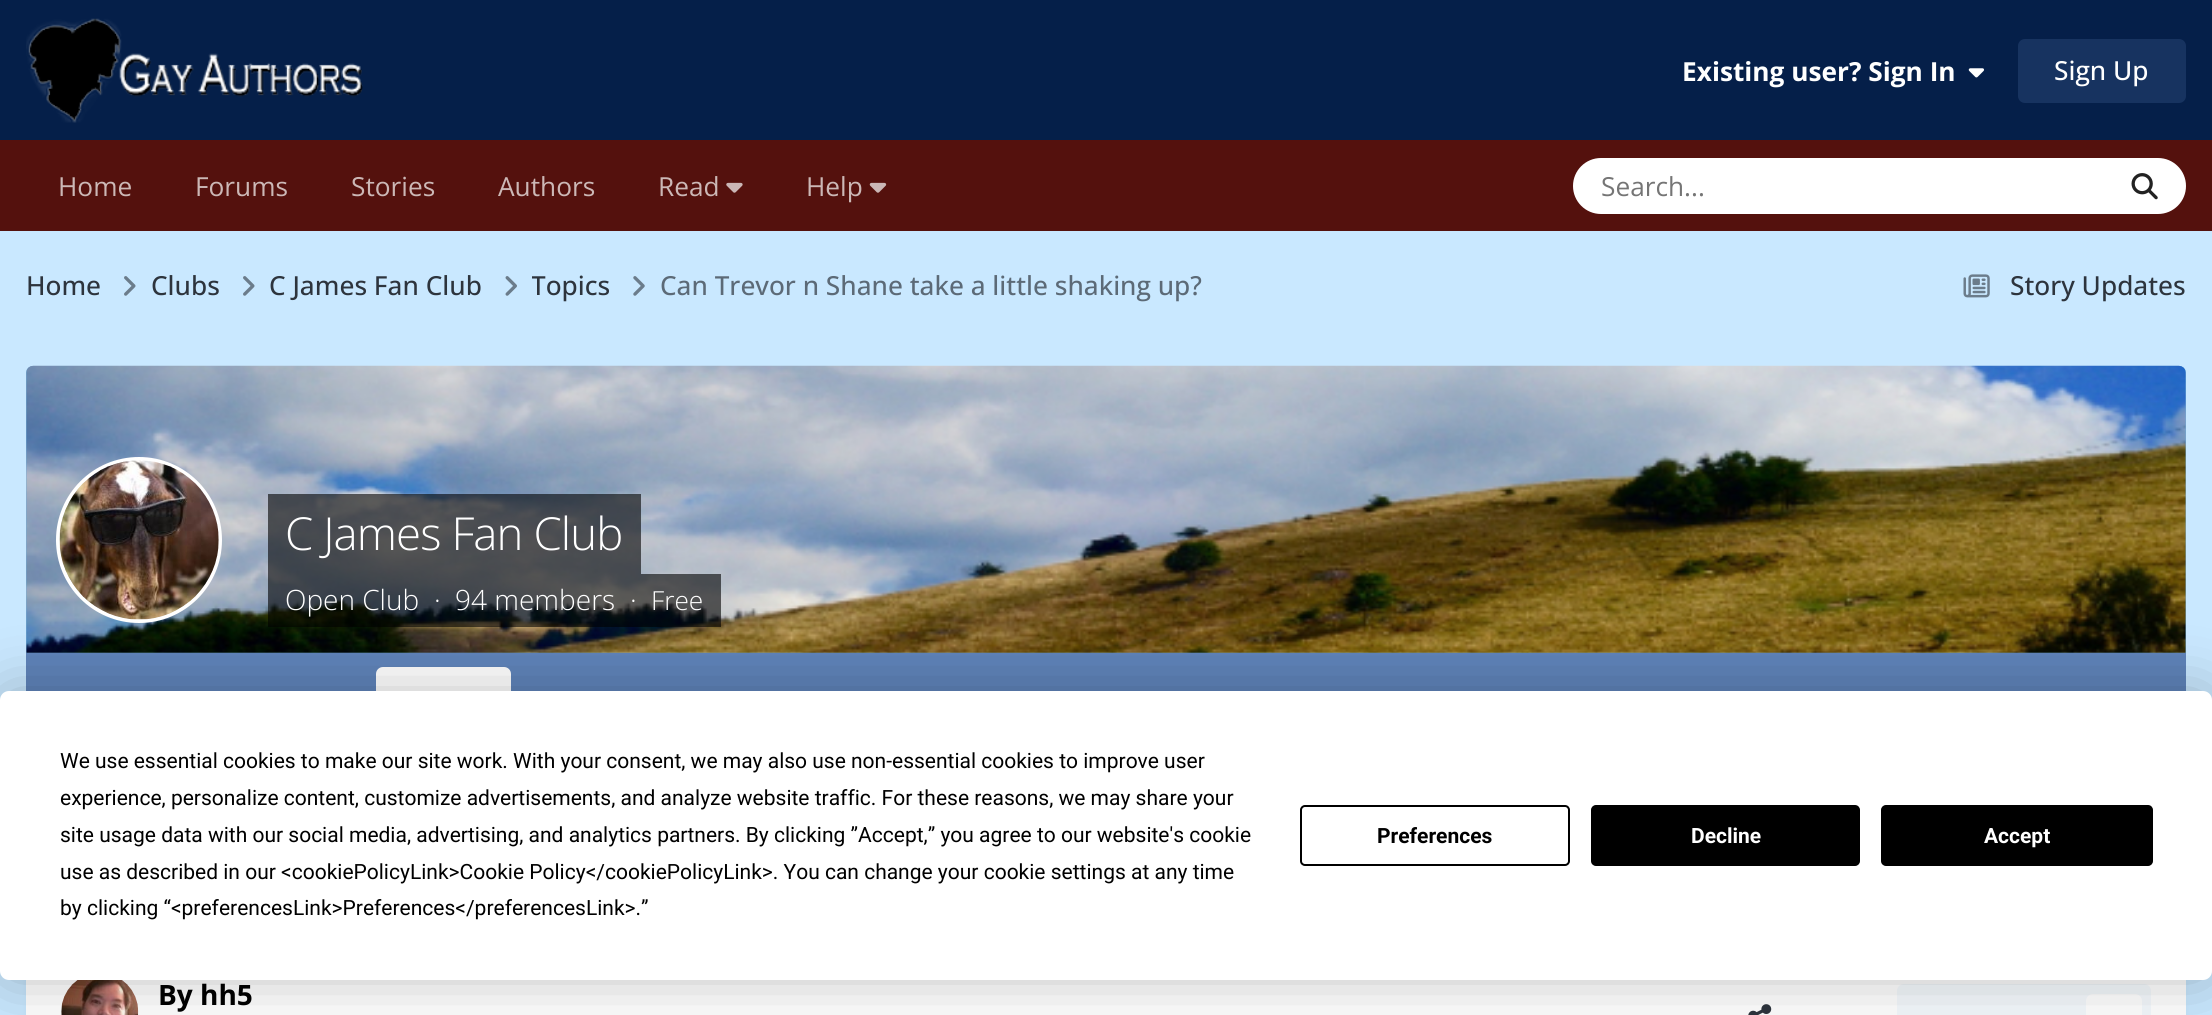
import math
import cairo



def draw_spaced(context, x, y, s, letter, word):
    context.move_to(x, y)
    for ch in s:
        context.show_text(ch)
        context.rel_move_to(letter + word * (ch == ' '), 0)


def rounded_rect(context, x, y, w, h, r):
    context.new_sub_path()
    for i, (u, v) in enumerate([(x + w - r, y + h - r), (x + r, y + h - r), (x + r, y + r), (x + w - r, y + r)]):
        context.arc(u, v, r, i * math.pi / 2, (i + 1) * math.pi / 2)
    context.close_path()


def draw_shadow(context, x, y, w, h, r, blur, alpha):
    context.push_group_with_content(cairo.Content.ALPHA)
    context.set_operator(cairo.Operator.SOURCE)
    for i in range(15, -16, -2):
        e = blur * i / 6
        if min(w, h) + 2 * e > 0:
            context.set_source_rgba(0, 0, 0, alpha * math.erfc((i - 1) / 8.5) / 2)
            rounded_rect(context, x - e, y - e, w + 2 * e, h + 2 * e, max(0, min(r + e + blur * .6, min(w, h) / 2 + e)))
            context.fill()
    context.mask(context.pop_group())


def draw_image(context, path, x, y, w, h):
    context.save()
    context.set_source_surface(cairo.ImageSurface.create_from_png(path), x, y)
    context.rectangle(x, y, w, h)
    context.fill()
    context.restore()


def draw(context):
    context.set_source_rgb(201 / 255, 232 / 255, 1)
    context.paint()
    context.set_source_rgb(5 / 255, 31 / 255, 73 / 255)
    context.rectangle(0, 0, 2212, 140)
    context.fill()
    draw_image(context, "images/1.png", 26, 18, 337, 105)
    draw_image(context, "images/2.png", 1968, 68, 16, 10)
    context.set_source_rgb(23 / 255, 51 / 255, 96 / 255)
    rounded_rect(context, 2018, 39, 168, 64, 7)
    context.fill()
    context.set_source_rgb(84 / 255, 17 / 255, 13 / 255)
    context.rectangle(0, 140, 2212, 91)
    context.fill()
    draw_image(context, "images/3.png", 726, 182, 17, 11)
    draw_image(context, "images/4.png", 869, 182, 18, 11)
    context.set_source_rgb(1, 1, 1)
    rounded_rect(context, 1573, 158, 613, 56, 28)
    context.fill()
    draw_image(context, "images/5.png", 2131, 173, 27, 27)
    draw_image(context, "images/6.png", 124, 276, 12, 20)
    draw_image(context, "images/6.png", 243, 276, 12, 20)
    draw_image(context, "images/7.png", 505, 276, 12, 20)
    draw_image(context, "images/8.png", 633, 276, 12, 20)
    draw_image(context, "images/9.png", 1963, 274, 27, 24)
    context.set_source_rgb(117 / 255, 174 / 255, 215 / 255)
    context.new_path()
    context.move_to(33, 366)
    context.line_to(2179, 366)
    context.curve_to(2183, 366, 2186, 369, 2186, 373)
    context.line_to(2186, 653)
    context.line_to(26, 653)
    context.line_to(26, 373)
    context.curve_to(26, 369, 29, 366, 33, 366)
    context.close_path()
    context.fill()
    draw_image(context, "images/10.png", 26, 365, 2160, 288)
    context.arc(139, 540, 81, 0, 2 * math.pi)
    context.set_source_rgb(1, 1, 1)
    context.set_line_width(4)
    context.stroke()
    draw_image(context, "images/11.png", 59, 460, 160, 160)
    context.set_source_rgba(0, 0, 0, 0.6)
    context.rectangle(268, 494, 373, 80)
    context.fill()
    context.rectangle(268, 574, 453, 53)
    context.fill()
    context.set_source_rgb(95 / 255, 131 / 255, 185 / 255)
    context.rectangle(26, 653, 2160, 38)
    context.fill()
    context.set_source_rgb(1, 1, 1)
    rounded_rect(context, 376, 667, 135, 79, 7)
    context.fill()
    context.set_source_rgb(95 / 255, 131 / 255, 185 / 255)
    draw_shadow(context, 28, 835, 2156, 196, 5, 3.5, 0.1)
    context.set_source_rgb(1, 1, 1)
    context.rectangle(26, 980, 2160, 35)
    context.fill()
    draw_image(context, "images/12.png", 61, 980, 78, 35)
    draw_image(context, "images/13.png", 1748, 1004, 24, 11)
    context.set_source_rgb(244 / 255, 249 / 255, 253 / 255)
    rounded_rect(context, 1897, 984, 254, 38, 7)
    context.fill()
    context.set_source_rgb(1, 1, 1)
    rounded_rect(context, 2086, 994, 56, 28, 7)
    context.fill()
    context.set_source_rgb(0, 0, 0)
    draw_shadow(context, 0, 691, 2212, 289, 9, 30.5, 0.25)
    context.set_source_rgb(1, 1, 1)
    rounded_rect(context, 0, 691, 2212, 289, 9)
    context.fill()
    rounded_rect(context, 1301, 806, 268, 59, 4)
    context.set_source_rgb(0, 0, 0)
    context.set_line_width(2)
    context.stroke()
    rounded_rect(context, 1592, 806, 267, 59, 4)
    context.fill_preserve()
    context.stroke()
    rounded_rect(context, 1882, 806, 270, 59, 4)
    context.fill_preserve()
    context.stroke()
    context.select_font_face("Open Sans", cairo.FontSlant.NORMAL, cairo.FontWeight.BOLD)
    context.set_font_size(26.25)
    context.set_source_rgb(1, 1, 1)
    context.move_to(1682, 81)
    context.show_text("Existing user? Sign In")
    context.select_font_face("Open Sans Medium")
    context.move_to(2054, 80)
    context.show_text("Sign Up")
    context.select_font_face("Open Sans")
    context.set_source_rgb(204 / 255, 184 / 255, 182 / 255)
    context.move_to(58, 196)
    context.show_text("Home")
    context.move_to(195, 196)
    context.show_text("Forums")
    context.move_to(351, 196)
    context.show_text("Stories")
    context.move_to(498, 196)
    context.show_text("Authors")
    context.move_to(658, 196)
    context.show_text("Read")
    context.move_to(806, 196)
    context.show_text("Help")
    context.set_source_rgb(117 / 255, 117 / 255, 117 / 255)
    context.move_to(1601, 196)
    context.show_text("Search...")
    context.select_font_face("Open Sans Medium")
    context.set_source_rgb(45 / 255, 52 / 255, 61 / 255)
    context.move_to(26, 295)
    context.show_text("Home")
    context.move_to(151, 295)
    context.show_text("Clubs")
    context.move_to(269, 295)
    context.show_text("C James Fan Club")
    context.save()
    context.rectangle(532, 266, 128, 39)
    context.clip()
    context.move_to(531, 295)
    context.show_text("Topics")
    context.restore()
    context.set_source_rgb(92 / 255, 106 / 255, 119 / 255)
    context.move_to(660, 295)
    context.show_text("Can Trevor n Shane take a little shaking up?")
    context.set_source_rgb(45 / 255, 52 / 255, 61 / 255)
    context.move_to(2010, 295)
    context.show_text("Story Updates")
    context.select_font_face("Open Sans Light")
    context.set_font_size(45.5)
    context.set_source_rgb(1, 1, 1)
    draw_spaced(context, 285, 550, "C James Fan Club", -0.9, 0)
    context.set_font_size(28)
    context.move_to(285, 610)
    context.show_text("Open Club")
    context.move_to(434, 610)
    context.show_text("·")
    context.move_to(455, 610)
    context.show_text("94 members")
    context.move_to(630, 610)
    context.show_text("·")
    context.set_font_size(26.25)
    context.move_to(651, 610)
    context.show_text("Free")
    context.select_font_face("Open Sans", cairo.FontSlant.NORMAL, cairo.FontWeight.BOLD)
    context.set_font_size(28)
    context.set_source_rgb(0, 0, 0)
    context.move_to(158, 1005)
    context.show_text("By hh5")
    context.select_font_face("Roboto")
    context.set_font_size(21)
    context.move_to(60, 768)
    context.show_text("We use essential cookies to make our site work. With your consent, we may also use non-essential cookies to improve user")
    context.move_to(60, 805)
    context.show_text("experience, personalize content, customize advertisements, and analyze website traffic. For these reasons, we may share your")
    context.move_to(60, 842)
    context.show_text("site usage data with our social media, advertising, and analytics partners. By clicking ”Accept,” you agree to our website's cookie")
    context.move_to(60, 879)
    context.show_text("use as described in our <cookiePolicyLink>Cookie Policy</cookiePolicyLink>. You can change your cookie settings at any time")
    context.move_to(60, 915)
    context.show_text("by clicking “<preferencesLink>Preferences</preferencesLink>.”")
    context.select_font_face("Roboto", cairo.FontSlant.NORMAL, cairo.FontWeight.BOLD)
    context.move_to(1377, 843)
    context.show_text("Preferences")
    context.set_source_rgb(1, 1, 1)
    context.move_to(1691, 843)
    context.show_text("Decline")
    context.move_to(1984, 843)
    context.show_text("Accept")


surface = cairo.ImageSurface(cairo.Format.RGB24, 2212, 1015)
context = cairo.Context(surface)
options = cairo.FontOptions()
options.set_hint_metrics(cairo.HintMetrics.OFF)
options.set_hint_style(cairo.HintStyle.NONE)
context.set_font_options(options)
context.set_miter_limit(4)
draw(context)
surface.write_to_png("out.png")
